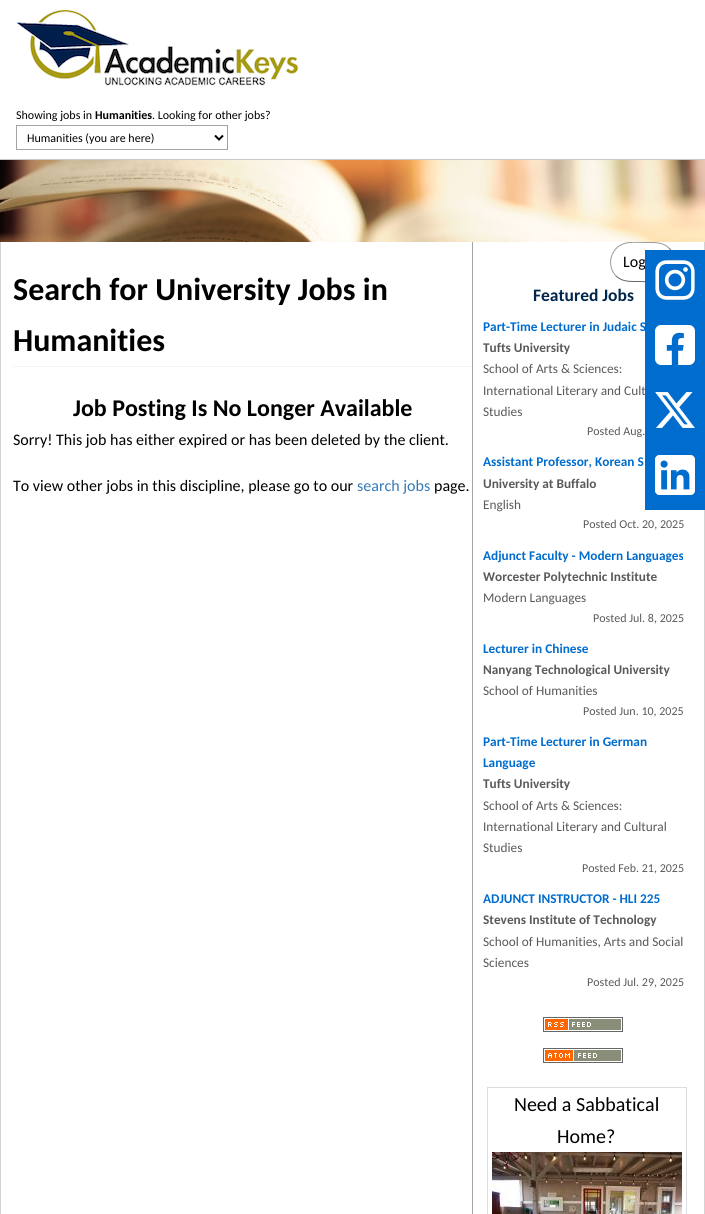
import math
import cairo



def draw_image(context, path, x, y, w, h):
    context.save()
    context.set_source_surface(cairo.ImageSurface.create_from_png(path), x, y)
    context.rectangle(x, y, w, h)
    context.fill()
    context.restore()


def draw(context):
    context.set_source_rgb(1, 1, 1)
    context.paint()
    context.set_source_rgb(198 / 255, 202 / 255, 206 / 255)
    context.rectangle(0, 159, 705, 1)
    context.fill()
    draw_image(context, "images/1.png", 16, 10, 283, 76)
    context.rectangle(16.5, 125.5, 211, 24)
    context.set_source_rgb(163 / 255, 163 / 255, 163 / 255)
    context.set_line_width(1)
    context.stroke()
    context.new_path()
    context.move_to(215, 135.5)
    context.line_to(219, 139.5)
    context.line_to(223, 135.5)
    context.set_source_rgb(0, 0, 0)
    context.set_line_width(2)
    context.stroke()
    context.new_path()
    context.move_to(669, 248)
    context.curve_to(679, 258.5, 674.5, 276.5, 660.5, 280.5)
    context.curve_to(654, 282.5, 645.5, 281.5, 638.5, 281.5)
    context.curve_to(630, 281.5, 622.5, 282, 616, 276)
    context.set_source_rgb(103 / 255, 103 / 255, 103 / 255)
    context.set_line_width(1)
    context.stroke()
    context.new_path()
    context.move_to(616, 276)
    context.curve_to(606, 265.5, 610.5, 247.5, 624.5, 243.5)
    context.curve_to(631, 241.5, 639.5, 242.5, 646.5, 242.5)
    context.curve_to(655, 242.5, 662.5, 242, 669, 248)
    context.set_source_rgb(154 / 255, 154 / 255, 154 / 255)
    context.stroke()
    draw_image(context, "images/2.png", 0, 160, 705, 82)
    context.set_source_rgb(211 / 255, 211 / 255, 211 / 255)
    context.rectangle(704, 242, 1, 972)
    context.fill()
    context.rectangle(0, 242, 1, 972)
    context.fill()
    context.set_source_rgb(243 / 255, 243 / 255, 243 / 255)
    context.rectangle(13, 366, 459, 1)
    context.fill()
    context.set_source_rgb(163 / 255, 163 / 255, 163 / 255)
    context.rectangle(472, 242, 1, 972)
    context.fill()
    draw_image(context, "images/7.png", 543, 1017, 80, 15)
    draw_image(context, "images/8.png", 543, 1048, 80, 15)
    context.rectangle(487.5, 1087.5, 199, 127)
    context.set_source_rgb(221 / 255, 221 / 255, 221 / 255)
    context.stroke()
    draw_image(context, "images/9.png", 492, 1152, 190, 62)
    context.select_font_face("Carlito")
    context.set_font_size(12)
    context.set_source_rgb(0, 0, 0)
    context.move_to(16, 119)
    context.show_text("Showing jobs in")
    context.select_font_face("Carlito", cairo.FontSlant.NORMAL, cairo.FontWeight.BOLD)
    context.move_to(95, 119)
    context.show_text("Humanities")
    context.select_font_face("Carlito")
    context.move_to(152, 119)
    context.show_text(". Looking for other jobs?")
    context.move_to(27, 142)
    context.show_text("Humanities (you are here)")
    context.set_font_size(16)
    context.move_to(623, 267)
    context.show_text("Log")
    context.select_font_face("Carlito", cairo.FontSlant.NORMAL, cairo.FontWeight.BOLD)
    context.set_font_size(32)
    context.move_to(13, 300)
    context.show_text("Search for University Jobs in")
    context.move_to(13, 351)
    context.show_text("Humanities")
    context.set_font_size(24)
    context.move_to(73, 416)
    context.show_text("Job Posting Is No Longer Available")
    context.select_font_face("Carlito")
    context.set_font_size(16)
    context.move_to(13, 445)
    context.show_text("Sorry! This job has either expired or has been deleted by the client.")
    context.move_to(13, 491)
    context.show_text("To view other jobs in this discipline, please go to our")
    context.set_source_rgb(51 / 255, 122 / 255, 183 / 255)
    context.move_to(357, 491)
    context.show_text("search jobs")
    context.set_source_rgb(0, 0, 0)
    context.move_to(434, 491)
    context.show_text("page.")
    context.select_font_face("Carlito", cairo.FontSlant.NORMAL, cairo.FontWeight.BOLD)
    context.set_font_size(17.5)
    context.set_source_rgb(0, 38 / 255, 76 / 255)
    context.move_to(533, 301)
    context.show_text("Featured Jobs")
    context.set_font_size(13.3)
    context.set_source_rgb(0, 108 / 255, 205 / 255)
    context.move_to(483, 331)
    context.show_text("Part-Time Lecturer in Judaic S")
    context.set_source_rgb(89 / 255, 89 / 255, 89 / 255)
    context.move_to(483, 352)
    context.show_text("Tufts University")
    context.select_font_face("Carlito")
    context.move_to(483, 373)
    context.show_text("School of Arts & Sciences:")
    context.move_to(483, 395)
    context.show_text("International Literary and Cult")
    context.set_source_rgb(0, 108 / 255, 205 / 255)
    context.rectangle(645, 250, 60, 260)
    context.fill()
    draw_image(context, "images/6.png", 655, 455, 40, 40)
    draw_image(context, "images/5.png", 655, 392, 40, 36)
    draw_image(context, "images/4.png", 655, 325, 40, 40)
    draw_image(context, "images/3.png", 655, 260, 40, 40)
    context.set_source_rgb(89 / 255, 89 / 255, 89 / 255)
    context.move_to(483, 416)
    context.show_text("Studies")
    context.set_font_size(12)
    context.move_to(587, 435)
    context.show_text("Posted Aug.")
    context.select_font_face("Carlito", cairo.FontSlant.NORMAL, cairo.FontWeight.BOLD)
    context.set_font_size(13.3)
    context.set_source_rgb(0, 108 / 255, 205 / 255)
    context.move_to(483, 466)
    context.show_text("Assistant Professor, Korean S")
    context.set_source_rgb(89 / 255, 89 / 255, 89 / 255)
    context.move_to(483, 488)
    context.show_text("University at Buffalo")
    context.select_font_face("Carlito")
    context.move_to(483, 509)
    context.show_text("English")
    context.set_font_size(12)
    context.move_to(583, 528)
    context.show_text("Posted Oct. 20, 2025")
    context.select_font_face("Carlito", cairo.FontSlant.NORMAL, cairo.FontWeight.BOLD)
    context.set_font_size(13.3)
    context.set_source_rgb(0, 108 / 255, 205 / 255)
    context.move_to(483, 560)
    context.show_text("Adjunct Faculty - Modern Languages")
    context.set_source_rgb(89 / 255, 89 / 255, 89 / 255)
    context.move_to(483, 581)
    context.show_text("Worcester Polytechnic Institute")
    context.select_font_face("Carlito")
    context.move_to(483, 602)
    context.show_text("Modern Languages")
    context.set_font_size(12)
    context.move_to(593, 622)
    context.show_text("Posted Jul. 8, 2025")
    context.select_font_face("Carlito", cairo.FontSlant.NORMAL, cairo.FontWeight.BOLD)
    context.set_font_size(13.3)
    context.set_source_rgb(0, 108 / 255, 205 / 255)
    context.move_to(483, 653)
    context.show_text("Lecturer in Chinese")
    context.set_source_rgb(89 / 255, 89 / 255, 89 / 255)
    context.move_to(483, 674)
    context.show_text("Nanyang Technological University")
    context.select_font_face("Carlito")
    context.move_to(483, 695)
    context.show_text("School of Humanities")
    context.set_font_size(12)
    context.move_to(583, 715)
    context.show_text("Posted Jun. 10, 2025")
    context.select_font_face("Carlito", cairo.FontSlant.NORMAL, cairo.FontWeight.BOLD)
    context.set_font_size(13.3)
    context.set_source_rgb(0, 108 / 255, 205 / 255)
    context.move_to(483, 746)
    context.show_text("Part-Time Lecturer in German")
    context.move_to(483, 767)
    context.show_text("Language")
    context.set_source_rgb(89 / 255, 89 / 255, 89 / 255)
    context.move_to(483, 788)
    context.show_text("Tufts University")
    context.select_font_face("Carlito")
    context.move_to(483, 810)
    context.show_text("School of Arts & Sciences:")
    context.move_to(483, 831)
    context.show_text("International Literary and Cultural")
    context.move_to(483, 852)
    context.show_text("Studies")
    context.set_font_size(12)
    context.move_to(582, 872)
    context.show_text("Posted Feb. 21, 2025")
    context.select_font_face("Carlito", cairo.FontSlant.NORMAL, cairo.FontWeight.BOLD)
    context.set_font_size(13.3)
    context.set_source_rgb(0, 108 / 255, 205 / 255)
    context.move_to(483, 903)
    context.show_text("ADJUNCT INSTRUCTOR - HLI 225")
    context.set_source_rgb(89 / 255, 89 / 255, 89 / 255)
    context.move_to(483, 924)
    context.show_text("Stevens Institute of Technology")
    context.select_font_face("Carlito")
    context.move_to(483, 946)
    context.show_text("School of Humanities, Arts and Social")
    context.move_to(483, 967)
    context.show_text("Sciences")
    context.set_font_size(12)
    context.move_to(587, 986)
    context.show_text("Posted Jul. 29, 2025")
    context.set_font_size(20)
    context.set_source_rgb(0, 0, 0)
    context.move_to(514, 1111)
    context.show_text("Need a Sabbatical")
    context.move_to(557, 1143)
    context.show_text("Home?")


surface = cairo.ImageSurface(cairo.Format.RGB24, 705, 1214)
context = cairo.Context(surface)
options = cairo.FontOptions()
options.set_hint_metrics(cairo.HintMetrics.OFF)
options.set_hint_style(cairo.HintStyle.NONE)
context.set_font_options(options)
context.set_miter_limit(4)
draw(context)
surface.write_to_png("out.png")
